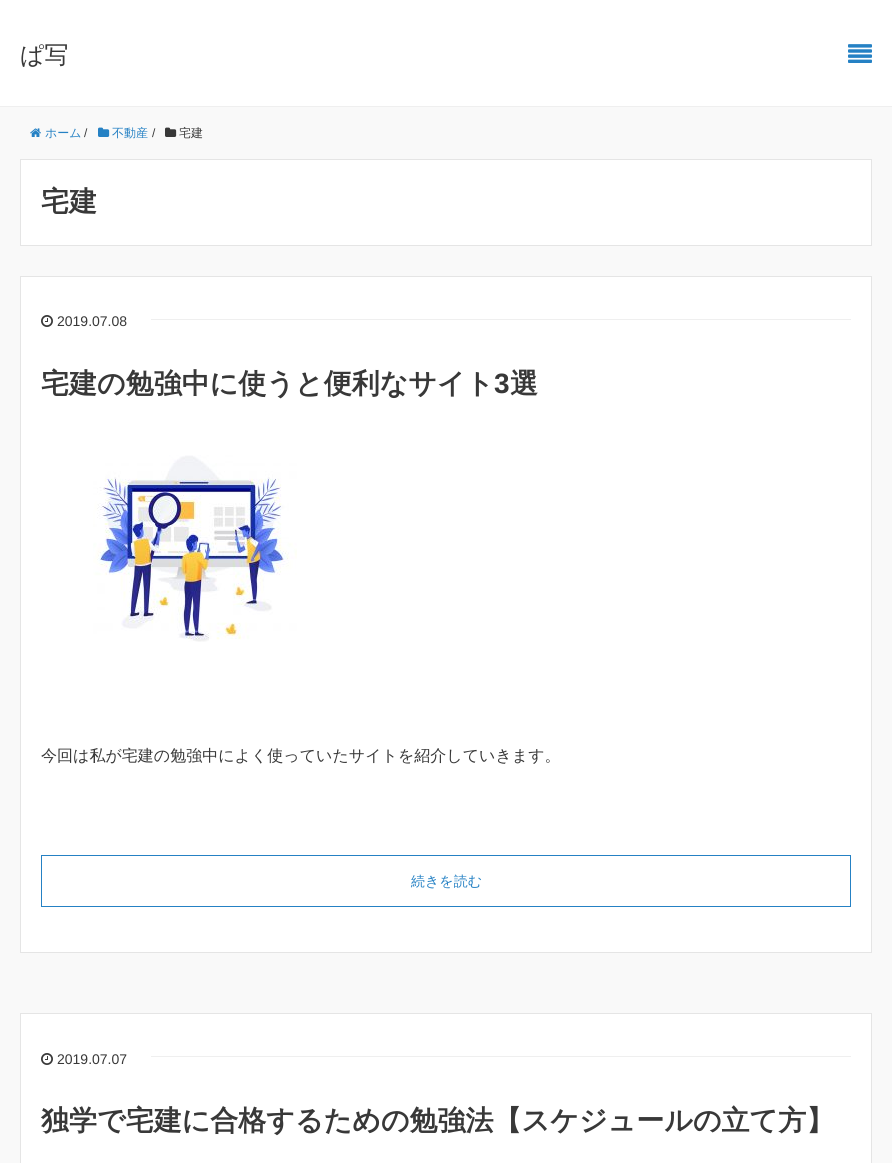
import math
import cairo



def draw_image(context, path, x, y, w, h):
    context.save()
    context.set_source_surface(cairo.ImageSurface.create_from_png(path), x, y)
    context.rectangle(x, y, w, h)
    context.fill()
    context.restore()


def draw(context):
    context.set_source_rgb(249 / 255, 249 / 255, 249 / 255)
    context.paint()
    context.set_source_rgb(1, 1, 1)
    context.rectangle(0, 0, 892, 106)
    context.fill()
    context.set_source_rgb(239 / 255, 239 / 255, 239 / 255)
    context.rectangle(0, 106, 892, 1)
    context.fill()
    draw_image(context, "images/1.png", 848, 44, 24, 19)
    draw_image(context, "images/2.png", 30, 128, 11, 9)
    draw_image(context, "images/3.png", 98, 127, 12, 10)
    draw_image(context, "images/4.png", 165, 127, 12, 10)
    context.set_source_rgb(1, 1, 1)
    context.rectangle(20.5, 159.5, 851, 86)
    context.fill_preserve()
    context.set_source_rgb(229 / 255, 229 / 255, 229 / 255)
    context.set_line_width(1)
    context.stroke()
    context.set_source_rgb(1, 1, 1)
    context.rectangle(20.5, 276.5, 851, 676)
    context.fill_preserve()
    context.set_source_rgb(229 / 255, 229 / 255, 229 / 255)
    context.stroke()
    context.set_source_rgb(239 / 255, 239 / 255, 239 / 255)
    context.rectangle(151, 319, 700, 1)
    context.fill()
    draw_image(context, "images/5.png", 41, 315, 12, 12)
    draw_image(context, "images/6.png", 93, 455, 204, 187)
    context.rectangle(41.5, 855.5, 809, 51)
    context.set_source_rgb(37 / 255, 129 / 255, 196 / 255)
    context.stroke()
    context.set_source_rgb(1, 1, 1)
    context.rectangle(20.5, 1013.5, 851, 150)
    context.fill_preserve()
    context.set_source_rgb(229 / 255, 229 / 255, 229 / 255)
    context.stroke()
    context.set_source_rgb(239 / 255, 239 / 255, 239 / 255)
    context.rectangle(151, 1056, 700, 1)
    context.fill()
    draw_image(context, "images/5.png", 41, 1053, 12, 12)
    context.select_font_face("WenQuanYi Zen Hei Medium")
    context.set_font_size(24)
    context.set_source_rgb(56 / 255, 56 / 255, 56 / 255)
    context.move_to(20, 63)
    context.show_text("ぱ写")
    context.set_font_size(12)
    context.set_source_rgb(37 / 255, 129 / 255, 196 / 255)
    context.move_to(45, 137)
    context.show_text("ホーム")
    context.select_font_face("Liberation Sans")
    context.set_source_rgb(56 / 255, 56 / 255, 56 / 255)
    context.move_to(84, 137)
    context.show_text("/")
    context.select_font_face("WenQuanYi Zen Hei Medium")
    context.set_source_rgb(37 / 255, 129 / 255, 196 / 255)
    context.move_to(112, 137)
    context.show_text("不動産")
    context.select_font_face("Liberation Sans")
    context.set_source_rgb(56 / 255, 56 / 255, 56 / 255)
    context.move_to(152, 137)
    context.show_text("/")
    context.select_font_face("WenQuanYi Zen Hei Medium")
    context.move_to(179, 137)
    context.show_text("宅建")
    context.select_font_face("WenQuanYi Zen Hei", cairo.FontSlant.NORMAL, cairo.FontWeight.BOLD)
    context.set_font_size(28)
    context.move_to(41, 211)
    context.show_text("宅建")
    context.select_font_face("Liberation Sans")
    context.set_font_size(14)
    context.move_to(57, 326)
    context.show_text("2019.07.08")
    context.select_font_face("WenQuanYi Zen Hei", cairo.FontSlant.NORMAL, cairo.FontWeight.BOLD)
    context.set_font_size(28)
    context.move_to(41, 393)
    context.show_text("宅建の勉強中に使うと便利なサイト")
    context.select_font_face("Liberation Sans", cairo.FontSlant.NORMAL, cairo.FontWeight.BOLD)
    context.move_to(494, 393)
    context.show_text("3")
    context.select_font_face("WenQuanYi Zen Hei", cairo.FontSlant.NORMAL, cairo.FontWeight.BOLD)
    context.move_to(510, 393)
    context.show_text("選")
    context.select_font_face("WenQuanYi Zen Hei Medium")
    context.set_font_size(16)
    context.move_to(41, 761)
    context.show_text("今回は私が宅建の勉強中によく使っていたサイトを紹介していきます。")
    context.set_font_size(14)
    context.set_source_rgb(37 / 255, 129 / 255, 196 / 255)
    context.move_to(411, 886)
    context.show_text("続きを読む")
    context.select_font_face("Liberation Sans")
    context.set_source_rgb(56 / 255, 56 / 255, 56 / 255)
    context.move_to(57, 1064)
    context.show_text("2019.07.07")
    context.select_font_face("WenQuanYi Zen Hei", cairo.FontSlant.NORMAL, cairo.FontWeight.BOLD)
    context.set_font_size(28)
    context.move_to(41, 1130)
    context.show_text("独学で宅建に合格するための勉強法【スケジュールの立て方】")


surface = cairo.ImageSurface(cairo.Format.RGB24, 892, 1163)
context = cairo.Context(surface)
options = cairo.FontOptions()
options.set_hint_metrics(cairo.HintMetrics.OFF)
options.set_hint_style(cairo.HintStyle.NONE)
context.set_font_options(options)
context.set_miter_limit(4)
draw(context)
surface.write_to_png("out.png")
